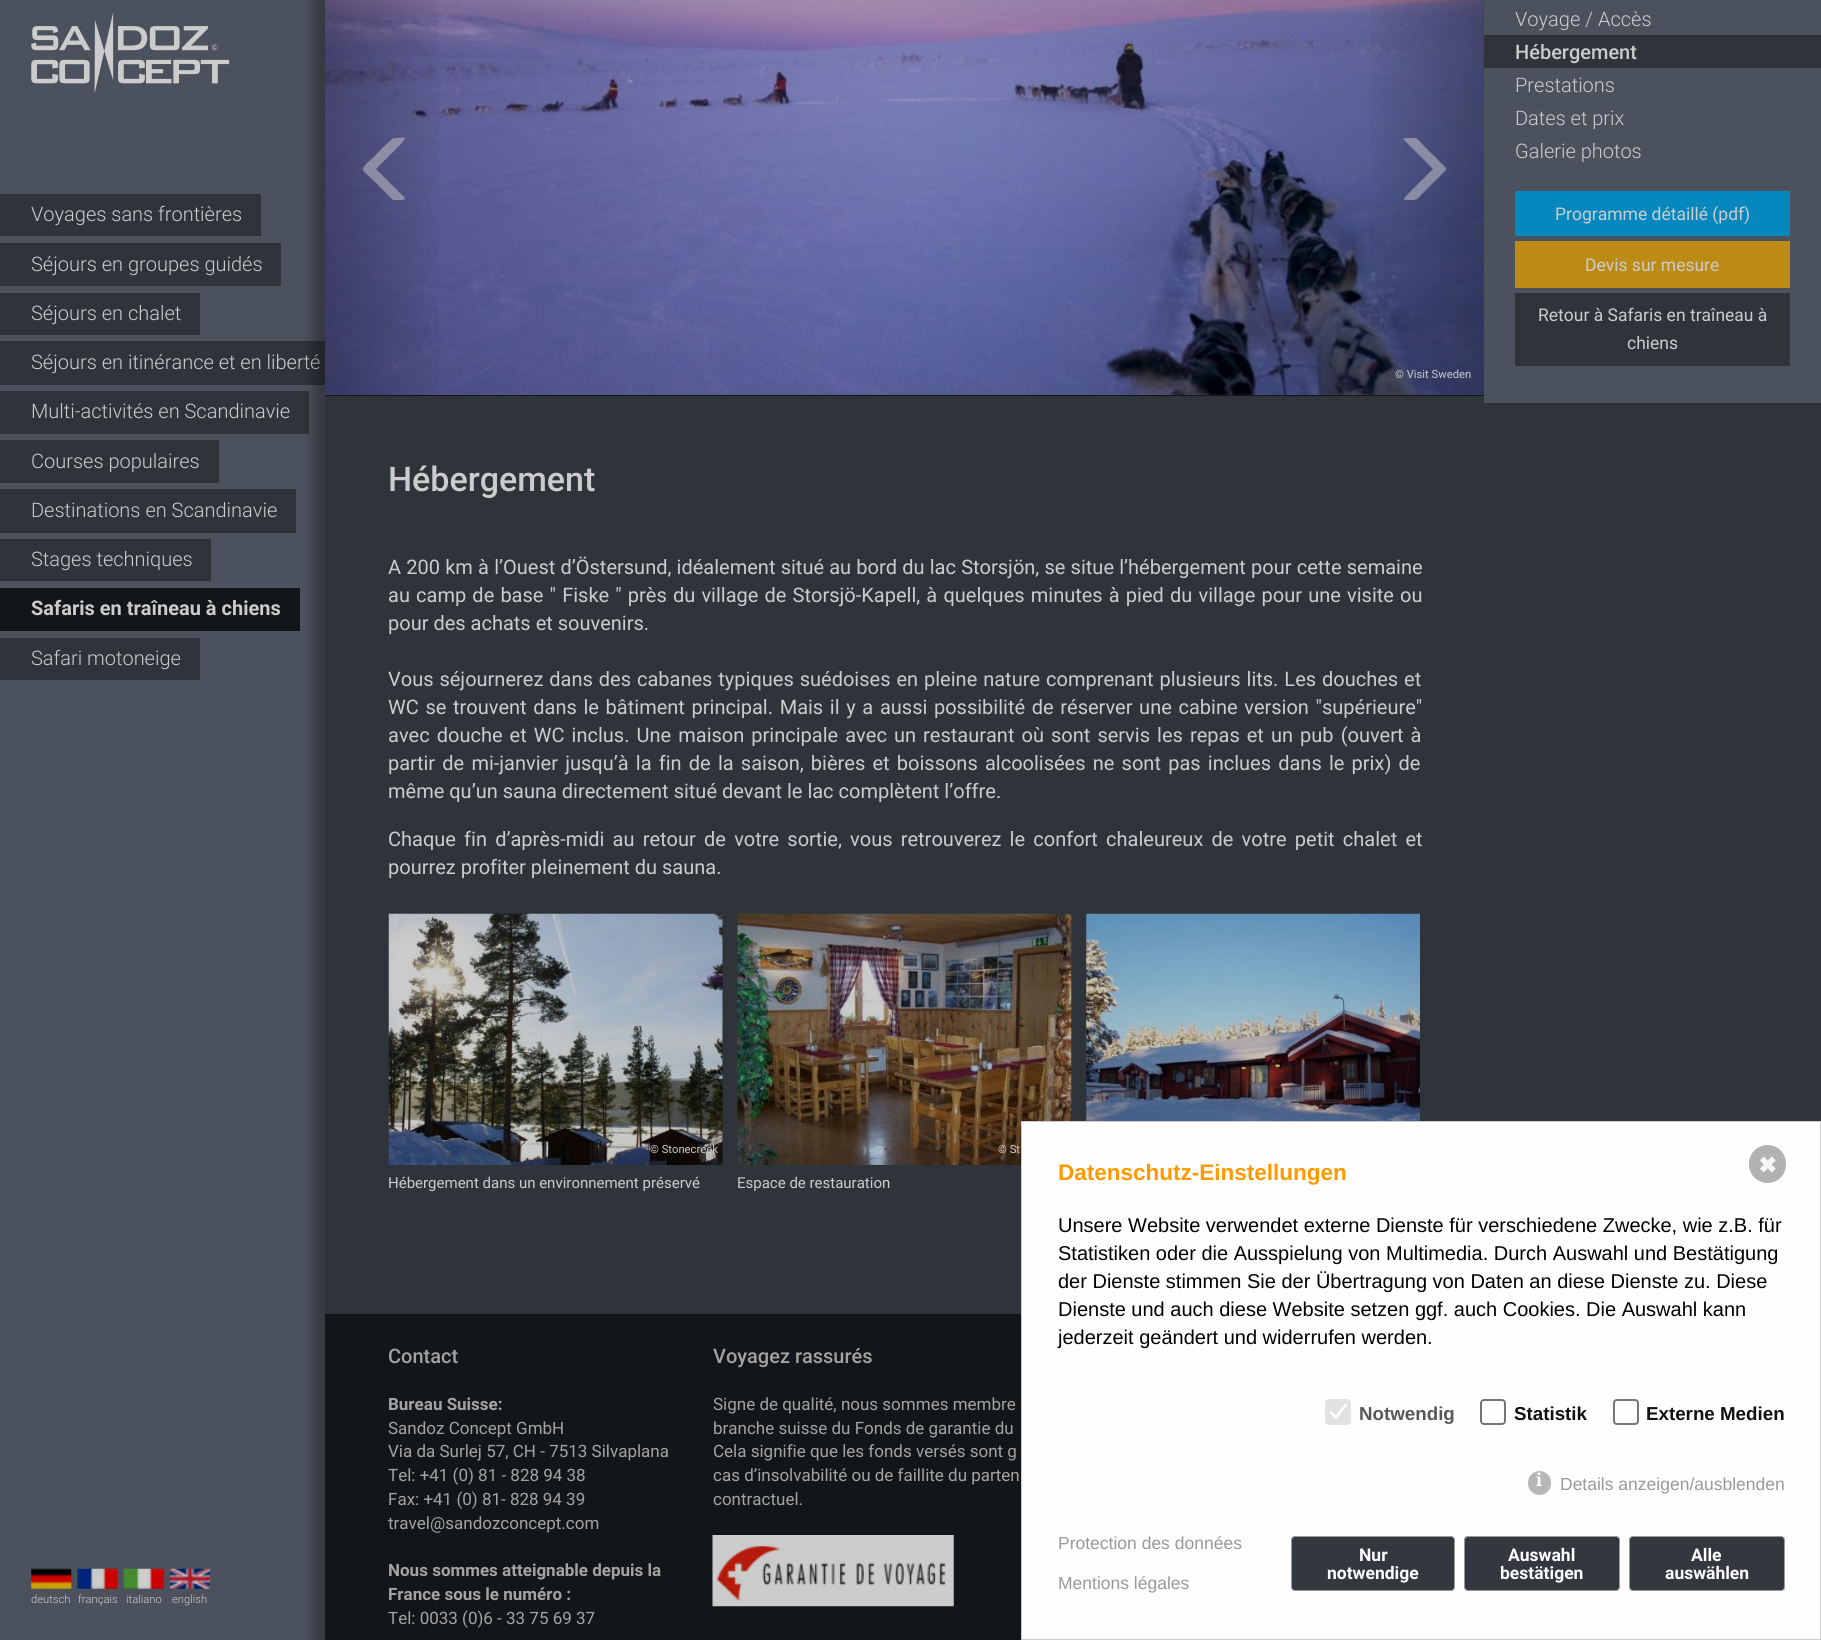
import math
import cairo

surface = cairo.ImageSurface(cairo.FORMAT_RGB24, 1821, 1640)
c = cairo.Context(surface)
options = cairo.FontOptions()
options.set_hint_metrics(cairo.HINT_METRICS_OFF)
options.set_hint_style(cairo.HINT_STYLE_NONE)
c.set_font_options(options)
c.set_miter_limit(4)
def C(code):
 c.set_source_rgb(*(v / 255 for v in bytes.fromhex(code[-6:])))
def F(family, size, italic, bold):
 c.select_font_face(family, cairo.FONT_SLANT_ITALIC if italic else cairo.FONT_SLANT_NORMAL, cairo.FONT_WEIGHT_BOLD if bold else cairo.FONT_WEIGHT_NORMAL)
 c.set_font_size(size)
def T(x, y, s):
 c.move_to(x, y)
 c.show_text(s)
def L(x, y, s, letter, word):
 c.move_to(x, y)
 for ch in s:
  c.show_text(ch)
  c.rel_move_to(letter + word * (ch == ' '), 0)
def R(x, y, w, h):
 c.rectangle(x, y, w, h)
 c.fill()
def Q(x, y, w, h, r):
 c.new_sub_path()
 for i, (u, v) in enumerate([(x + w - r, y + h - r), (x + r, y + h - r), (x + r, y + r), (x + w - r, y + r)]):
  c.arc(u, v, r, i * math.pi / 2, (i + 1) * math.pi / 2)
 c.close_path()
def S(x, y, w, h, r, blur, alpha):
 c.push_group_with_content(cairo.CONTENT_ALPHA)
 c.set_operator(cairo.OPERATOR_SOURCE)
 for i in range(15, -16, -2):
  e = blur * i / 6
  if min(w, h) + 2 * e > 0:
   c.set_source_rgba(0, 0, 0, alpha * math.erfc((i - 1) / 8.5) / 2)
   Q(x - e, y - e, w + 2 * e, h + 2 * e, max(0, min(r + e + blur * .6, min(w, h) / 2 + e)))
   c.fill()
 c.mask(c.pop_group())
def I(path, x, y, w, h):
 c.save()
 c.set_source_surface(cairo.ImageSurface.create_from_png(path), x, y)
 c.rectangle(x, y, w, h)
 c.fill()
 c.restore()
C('4c525d')
c.paint()
I('1.png',31,13,199,81)
C('2f343a')
R(0,194,261,42)
F('Roboto Light',20,0,0)
C('cccccc')
T(31,221,'Voyages sans frontières')
C('2f343a')
R(0,243,281,43)
C('cccccc')
T(31,271,'Séjours en groupes guidés')
C('2f343a')
R(0,293,200,42)
C('cccccc')
T(31,320,'Séjours en chalet')
C('2f343a')
R(0,341,325,44)
C('cccccc')
T(31,369,'Séjours en itinérance et en liberté')
C('2f343a')
R(0,391,309,43)
C('cccccc')
T(31,418,'Multi-activités en Scandinavie')
C('2f343a')
R(0,440,219,43)
C('cccccc')
T(31,468,'Courses populaires')
C('2f343a')
R(0,489,296,44)
C('cccccc')
T(31,517,'Destinations en Scandinavie')
C('2f343a')
R(0,539,211,42)
C('cccccc')
T(31,566,'Stages techniques')
C('131618')
R(0,588,300,43)
F('Roboto',20,0,1)
C('cccccc')
T(31,615,'Safaris en traîneau à chiens')
C('2f343a')
R(0,638,200,42)
F('Roboto Light',20,0,0)
C('cccccc')
T(31,665,'Safari motoneige')
C('000000')
S(313,-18,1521,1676,0,6,.3)
C('2f343a')
R(325,396,1496,918)
C('4c525d')
R(325,0,1159,395)
C('131618')
R(325,395,1159,1)
C('4c525d')
R(1484,0,337,403)
C('cccccc')
T(1515,26,'Voyage / Accès')
C('2f343a')
R(1484,35,337,33)
F('Roboto Medium',20,0,0)
C('cccccc')
T(1515,59,'Hébergement')
F('Roboto Light',20,0,0)
T(1515,92,'Prestations')
T(1515,125,'Dates et prix')
T(1515,158,'Galerie photos')
C('0688be')
R(1515,191,275,45)
F('Roboto',17.5,0,0)
C('cccccc')
T(1555,220,'Programme détaillé (pdf)')
C('bd8b14')
R(1515,241,275,47)
C('cccccc')
T(1585,271,'Devis sur mesure')
C('2f343a')
R(1515,293,275,73)
C('cccccc')
T(1538,321,'Retour à Safaris en traîneau à')
T(1627,349,'chiens')
I('2.png',325,0,1159,395)
gradient = cairo.LinearGradient(325,148,450,148)
gradient.add_color_stop_rgba(0,0,0,0,.25)
gradient.add_color_stop_rgba(1,0,0,0,0)
c.set_source(gradient)
R(325,0,114,395)
c.set_source_rgba(0.8,0.8,0.8,0.5)
c.new_path()
c.move_to(394,138)
c.curve_to(405,138,409,135,400,145)
c.line_to(376,169)
c.line_to(400,193)
c.curve_to(405,198,408,200,400,200)
c.line_to(393,200)
c.line_to(373,180)
c.curve_to(371,178,362,171,363,169)
c.curve_to(363,166,371,159,373,158)
c.curve_to(375,155,392,138,394,138)
c.close_path()
c.fill()
gradient = cairo.LinearGradient(1359,148,1484,148)
gradient.add_color_stop_rgba(0,0,0,0,0)
gradient.add_color_stop_rgba(1,0,0,0,.25)
c.set_source(gradient)
R(1370,0,114,395)
c.set_source_rgba(0.8,0.8,0.8,0.5)
c.new_path()
c.move_to(1405,138)
c.curve_to(1420,138,1414,136,1426,148)
c.line_to(1441,163)
c.curve_to(1448,170,1448,168,1441,175)
c.line_to(1426,190)
c.curve_to(1415,201,1420,200,1405,200)
c.curve_to(1404,200,1404,199,1404,198)
c.line_to(1433,169)
c.line_to(1404,140)
c.curve_to(1403,139,1404,138,1405,138)
c.close_path()
c.fill()
F('Roboto',11.25,0,0)
C('cccccc')
T(1395,378,'© Visit Sweden')
F('Roboto Medium',34,0,0)
T(388,491,'Hébergement')
F('Roboto',20,0,0)
L(388,574,'A 200 km à l’Ouest d’Östersund, idéalement situé au bord du lac Storsjön, se situe l’hébergement pour cette semaine',0,.25)
L(388,602,'au camp de base " Fiske " près du village de Storsjö-Kapell, à quelques minutes à pied du village pour une visite ou',0,1.2)
T(388,630,'pour des achats et souvenirs.')
L(388,686,'Vous séjournerez dans des cabanes typiques suédoises en pleine nature comprenant plusieurs lits. Les douches et',0,1)
L(388,714,'WC se trouvent dans le bâtiment principal. Mais il y a aussi possibilité de réserver une cabine version "supérieure"',0,1.7)
L(388,742,'avec douche et WC inclus. Une maison principale avec un restaurant où sont servis les repas et un pub (ouvert à',0,2.1)
L(388,770,'partir de mi-janvier jusqu’à la fin de la saison, bières et boissons alcoolisées ne sont pas inclues dans le prix) de',0,2.25)
T(388,798,'même qu’un sauna directement situé devant le lac complètent l’offre.')
L(388,846,'Chaque fin d’après-midi au retour de votre sortie, vous retrouverez le confort chaleureux de votre petit chalet et',0,3.25)
T(388,874,'pourrez profiter pleinement du sauna.')
I('3.png',1086,913,334,208)
C('292c32')
R(722,914,1,251)
I('4.png',388,913,335,252)
F('Roboto',11.25,0,0)
C('cccccc')
T(650,1153,'© Stonecreek')
F('Roboto',15,0,0)
T(388,1188,'Hébergement dans un environnement préservé')
I('5.png',737,913,335,252)
F('Roboto',11.25,0,0)
T(998,1153,'© St')
F('Roboto',15,0,0)
T(737,1188,'Espace de restauration')
C('131618')
R(325,1314,696,326)
F('Roboto Medium',20,0,0)
C('a3a3a3')
T(388,1363,'Contact')
F('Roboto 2',17,0,1)
T(388,1410,'Bureau Suisse:')
F('Roboto',17,0,0)
T(388,1434,'Sandoz Concept GmbH')
T(388,1457,'Via da Surlej 57, CH - 7513 Silvaplana')
T(388,1481,'Tel: +41 (0) 81 - 828 94 38')
T(388,1505,'Fax: +41 (0) 81- 828 94 39')
T(388,1529,'travel@sandozconcept.com')
F('Roboto 2',17,0,1)
T(388,1576,'Nous sommes atteignable depuis la')
T(388,1600,'France sous le numéro :')
F('Roboto',17,0,0)
T(388,1624,'Tel: 0033 (0)6 - 33 75 69 37')
F('Roboto Medium',20,0,0)
T(713,1363,'Voyagez rassurés')
F('Roboto',17,0,0)
T(713,1410,'Signe de qualité, nous sommes membre')
T(713,1434,'branche suisse du Fonds de garantie du')
T(713,1457,'Cela signifie que les fonds versés sont g')
T(713,1481,'cas d’insolvabilité ou de faillite du parten')
T(713,1505,'contractuel.')
I('6.png',712,1535,242,72)
C('fefefe')
c.rectangle(1021.5,1121.5,799,518)
c.fill_preserve()
C('cbcbcb')
c.set_line_width(1)
c.stroke()
C('b2b2b2')
Q(1750.5,1146.5,34,35,17)
c.fill_preserve()
c.set_line_width(3)
c.stroke()
F('DejaVu Sans',22.5,0,1)
C('f6f6f6')
T(1758,1173,'✖')
F('Liberation Sans',22.5,0,1)
C('ff9900')
T(1058,1180,'Datenschutz-Einstellungen')
F('Liberation Sans',20,0,0)
C('000000')
T(1058,1232,'Unsere Website verwendet externe Dienste für verschiedene Zwecke, wie z.B. für')
T(1058,1260,'Statistiken oder die Ausspielung von Multimedia. Durch Auswahl und Bestätigung')
T(1058,1288,'der Dienste stimmen Sie der Übertragung von Daten an diese Dienste zu. Diese')
T(1058,1316,'Dienste und auch diese Website setzen ggf. auch Cookies. Die Auswahl kann')
T(1058,1344,'jederzeit geändert und widerrufen werden.')
C('e2e2e2')
Q(1325,1399,26,26,4)
c.fill()
c.new_path()
c.move_to(1330.5,1412)
c.line_to(1336,1417.5)
c.line_to(1346,1404.5)
C('ffffff')
c.set_line_width(2.6)
c.stroke()
F('Liberation Sans',18.75,0,1)
C('585858')
T(1359,1420,'Notwendig')
Q(1481,1400,24,24,3)
C('767676')
c.set_line_width(2)
c.stroke()
C('111111')
T(1514,1420,'Statistik')
Q(1614,1400,24,24,3)
C('767676')
c.stroke()
C('111111')
T(1646,1420,'Externe Medien')
C('b7b7b7')
Q(1528,1471,23,24,11.5)
c.fill()
F('Noto Serif',17.5,0,1)
C('ffffff')
T(1536,1486,'i')
F('Liberation Sans',17.5,0,0)
C('999999')
T(1560,1490,'Details anzeigen/ausblenden')
T(1058,1549,'Protection des données')
T(1058,1589,'Mentions légales')
C('33373e')
Q(1291.5,1536.5,163,54,3.5)
c.fill_preserve()
C('999999')
c.set_line_width(1)
c.stroke()
F('Roboto 2',17.5,0,1)
C('ffffff')
T(1359,1561,'Nur')
T(1327,1579,'notwendige')
C('33373e')
Q(1464.5,1536.5,155,54,3.5)
c.fill_preserve()
C('999999')
c.stroke()
C('ffffff')
T(1508,1561,'Auswahl')
T(1500,1579,'bestätigen')
C('33373e')
Q(1629.5,1536.5,155,54,3.5)
c.fill_preserve()
C('999999')
c.stroke()
C('ffffff')
T(1691,1561,'Alle')
T(1665,1579,'auswählen')
I('7.png',31,1568,41,21)
F('Roboto Light',11.25,0,0)
C('cccccc')
T(31,1603,'deutsch')
I('8.png',77,1568,42,21)
T(78,1603,'français')
I('9.png',123,1568,42,21)
T(126,1603,'italiano')
I('10.png',169,1568,42,21)
T(172,1603,'english')
surface.write_to_png('o.png')
